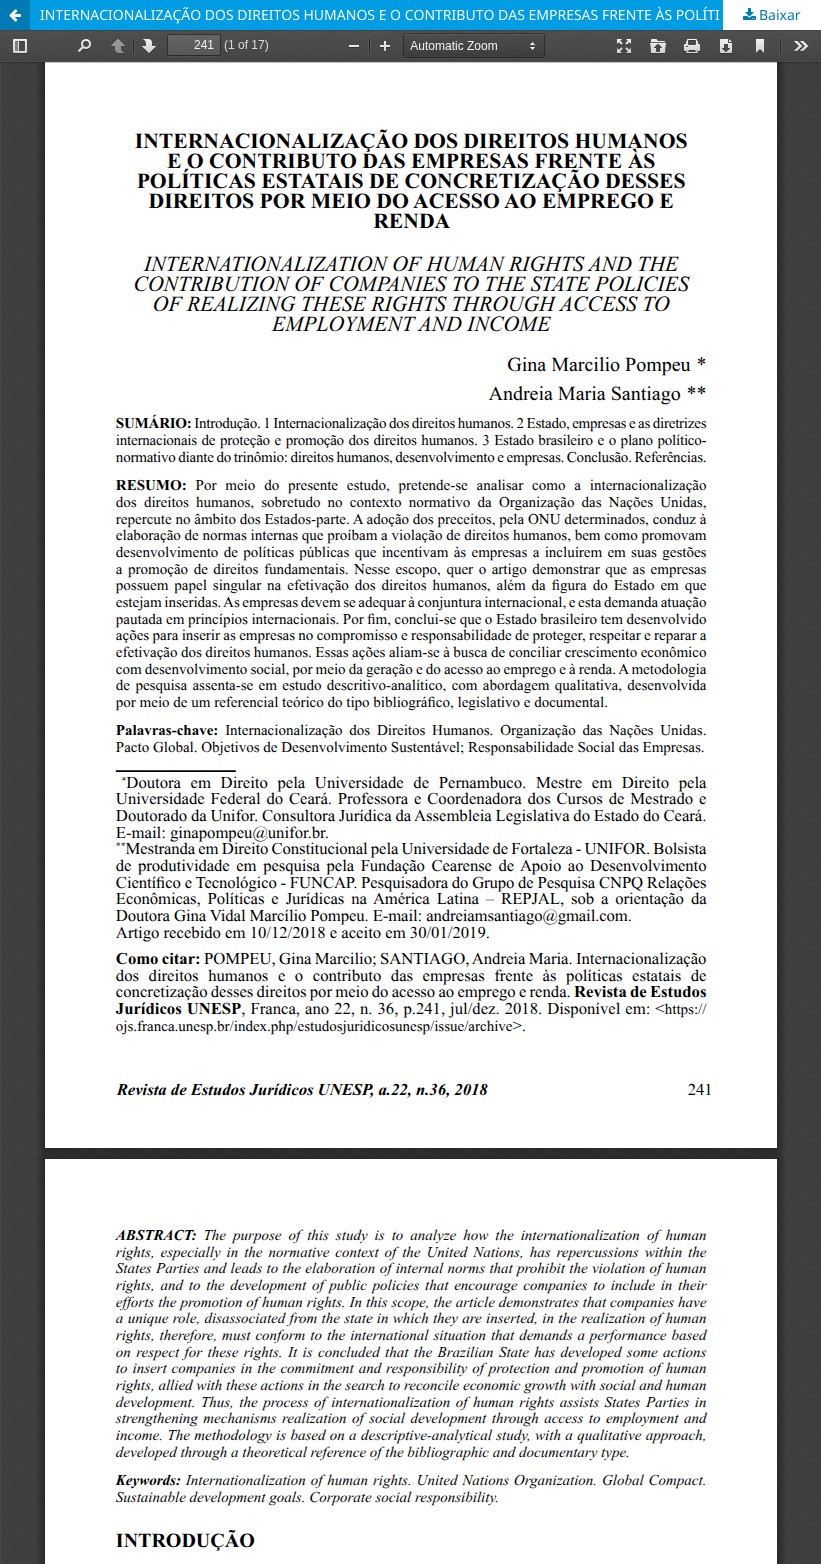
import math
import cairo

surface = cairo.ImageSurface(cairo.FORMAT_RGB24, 821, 1564)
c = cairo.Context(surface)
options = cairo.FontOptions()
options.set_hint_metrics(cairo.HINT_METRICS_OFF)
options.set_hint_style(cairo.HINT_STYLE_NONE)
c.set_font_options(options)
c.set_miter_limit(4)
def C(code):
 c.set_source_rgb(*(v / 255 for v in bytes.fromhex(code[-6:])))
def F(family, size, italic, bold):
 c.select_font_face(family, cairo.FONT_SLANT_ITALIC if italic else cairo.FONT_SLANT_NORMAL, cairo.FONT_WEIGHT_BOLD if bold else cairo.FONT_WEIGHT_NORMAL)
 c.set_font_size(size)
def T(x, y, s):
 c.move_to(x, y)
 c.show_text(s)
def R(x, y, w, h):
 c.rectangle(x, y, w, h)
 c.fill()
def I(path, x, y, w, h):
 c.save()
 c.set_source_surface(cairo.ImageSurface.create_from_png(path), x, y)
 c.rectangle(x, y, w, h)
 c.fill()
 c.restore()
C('ffffff')
c.paint()
C('009de5')
R(30,0,693,30)
C('007ab2')
R(0,0,30,30)
I('1.png',9,9,12,13)
F('Noto Sans',14,0,0)
C('ffffff')
T(40,20,'INTERNACIONALIZAÇÃO DOS DIREITOS HUMANOS E O CONTRIBUTO DAS EMPRESAS FRENTE ÀS POLÍTI')
I('2.png',743,8,13,12)
C('007ab2')
T(759,20,'Baixar')
I('3.png',0,30,821,1534)
surface.write_to_png('o.png')
